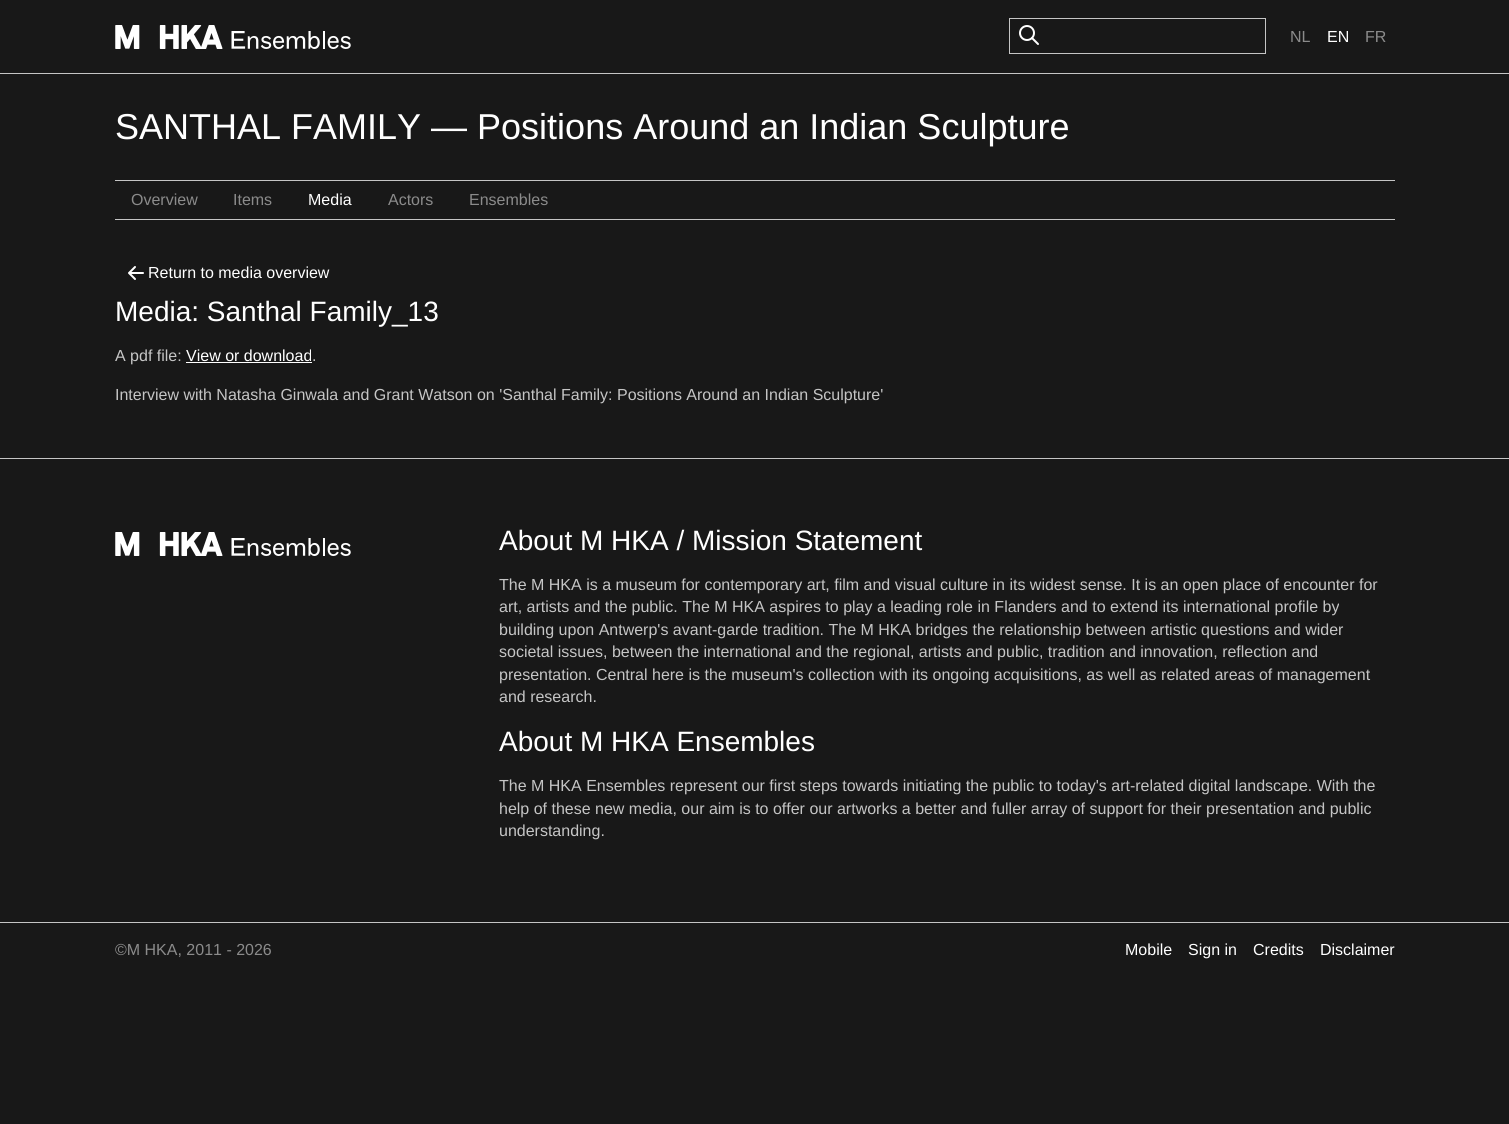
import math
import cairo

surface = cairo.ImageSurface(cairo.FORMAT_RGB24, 1509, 1124)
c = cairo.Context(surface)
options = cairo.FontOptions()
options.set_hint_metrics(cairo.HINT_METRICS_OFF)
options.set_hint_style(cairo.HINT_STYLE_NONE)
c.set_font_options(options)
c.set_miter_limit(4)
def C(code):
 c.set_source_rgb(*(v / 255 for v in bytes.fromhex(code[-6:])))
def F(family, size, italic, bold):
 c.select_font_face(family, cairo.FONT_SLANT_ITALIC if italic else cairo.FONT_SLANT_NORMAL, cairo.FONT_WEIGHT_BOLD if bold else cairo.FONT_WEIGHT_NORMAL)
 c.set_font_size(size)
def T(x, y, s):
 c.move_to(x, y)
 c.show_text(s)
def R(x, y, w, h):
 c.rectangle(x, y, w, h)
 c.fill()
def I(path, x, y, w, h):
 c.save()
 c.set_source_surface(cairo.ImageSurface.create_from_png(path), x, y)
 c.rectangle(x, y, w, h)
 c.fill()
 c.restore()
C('181818')
c.paint()
C('c5c5c5')
R(0,73,1509,1)
I('1.png',115,25,236,24)
c.rectangle(1009.5,18.5,256,35)
c.set_line_width(1)
c.stroke()
I('2.png',1019,25,20,20)
F('Liberation Sans',16,0,0)
C('8b8b8b')
T(1290,42,'NL')
C('ffffff')
T(1327,42,'EN')
C('8b8b8b')
T(1365,42,'FR')
F('Liberation Sans',36,0,0)
C('ffffff')
T(115,139,'SANTHAL FAMILY — Positions Around an Indian Sculpture')
C('c5c5c5')
R(115,180,1280,1)
R(115,219,1280,1)
F('Liberation Sans',16,0,0)
C('8b8b8b')
T(131,205,'Overview')
T(233,205,'Items')
C('ffffff')
T(308,205,'Media')
C('8b8b8b')
T(388,205,'Actors')
T(469,205,'Ensembles')
c.new_path()
c.move_to(129,273)
c.line_to(143,273)
c.move_to(135,267)
c.line_to(129,273)
c.line_to(135,279)
C('ffffff')
c.set_line_width(2)
c.set_line_cap(cairo.LINE_CAP_ROUND)
c.set_line_join(cairo.LINE_JOIN_ROUND)
c.stroke()
T(148,278,'Return to media overview')
F('Liberation Sans',28,0,0)
T(115,321,'Media: Santhal Family_13')
F('Liberation Sans',16,0,0)
C('c5c5c5')
T(115,361,'A pdf file:')
C('ffffff')
T(186,361,'View or download')
R(186,362,126,1)
C('c5c5c5')
T(312,361,'.')
T(115,400,'Interview with Natasha Ginwala and Grant Watson on \'Santhal Family: Positions Around an Indian Sculpture\'')
R(0,458,1509,1)
I('1.png',115,532,236,24)
F('Liberation Sans',28,0,0)
C('ffffff')
T(499,550,'About M HKA / Mission Statement')
F('Liberation Sans',16,0,0)
C('c5c5c5')
T(499,590,'The M HKA is a museum for contemporary art, film and visual culture in its widest sense. It is an open place of encounter for')
T(499,612,'art, artists and the public. The M HKA aspires to play a leading role in Flanders and to extend its international profile by')
T(499,635,'building upon Antwerp\'s avant-garde tradition. The M HKA bridges the relationship between artistic questions and wider')
T(499,657,'societal issues, between the international and the regional, artists and public, tradition and innovation, reflection and')
T(499,680,'presentation. Central here is the museum\'s collection with its ongoing acquisitions, as well as related areas of management')
T(499,702,'and research.')
F('Liberation Sans',28,0,0)
C('ffffff')
T(499,751,'About M HKA Ensembles')
F('Liberation Sans',16,0,0)
C('c5c5c5')
T(499,791,'The M HKA Ensembles represent our first steps towards initiating the public to today\'s art-related digital landscape. With the')
T(499,814,'help of these new media, our aim is to offer our artworks a better and fuller array of support for their presentation and public')
T(499,836,'understanding.')
R(0,922,1509,1)
C('8b8b8b')
T(115,955,'©M HKA, 2011 - 2026')
C('ffffff')
T(1125,955,'Mobile')
T(1188,955,'Sign in')
T(1253,955,'Credits')
T(1320,955,'Disclaimer')
surface.write_to_png('o.png')
